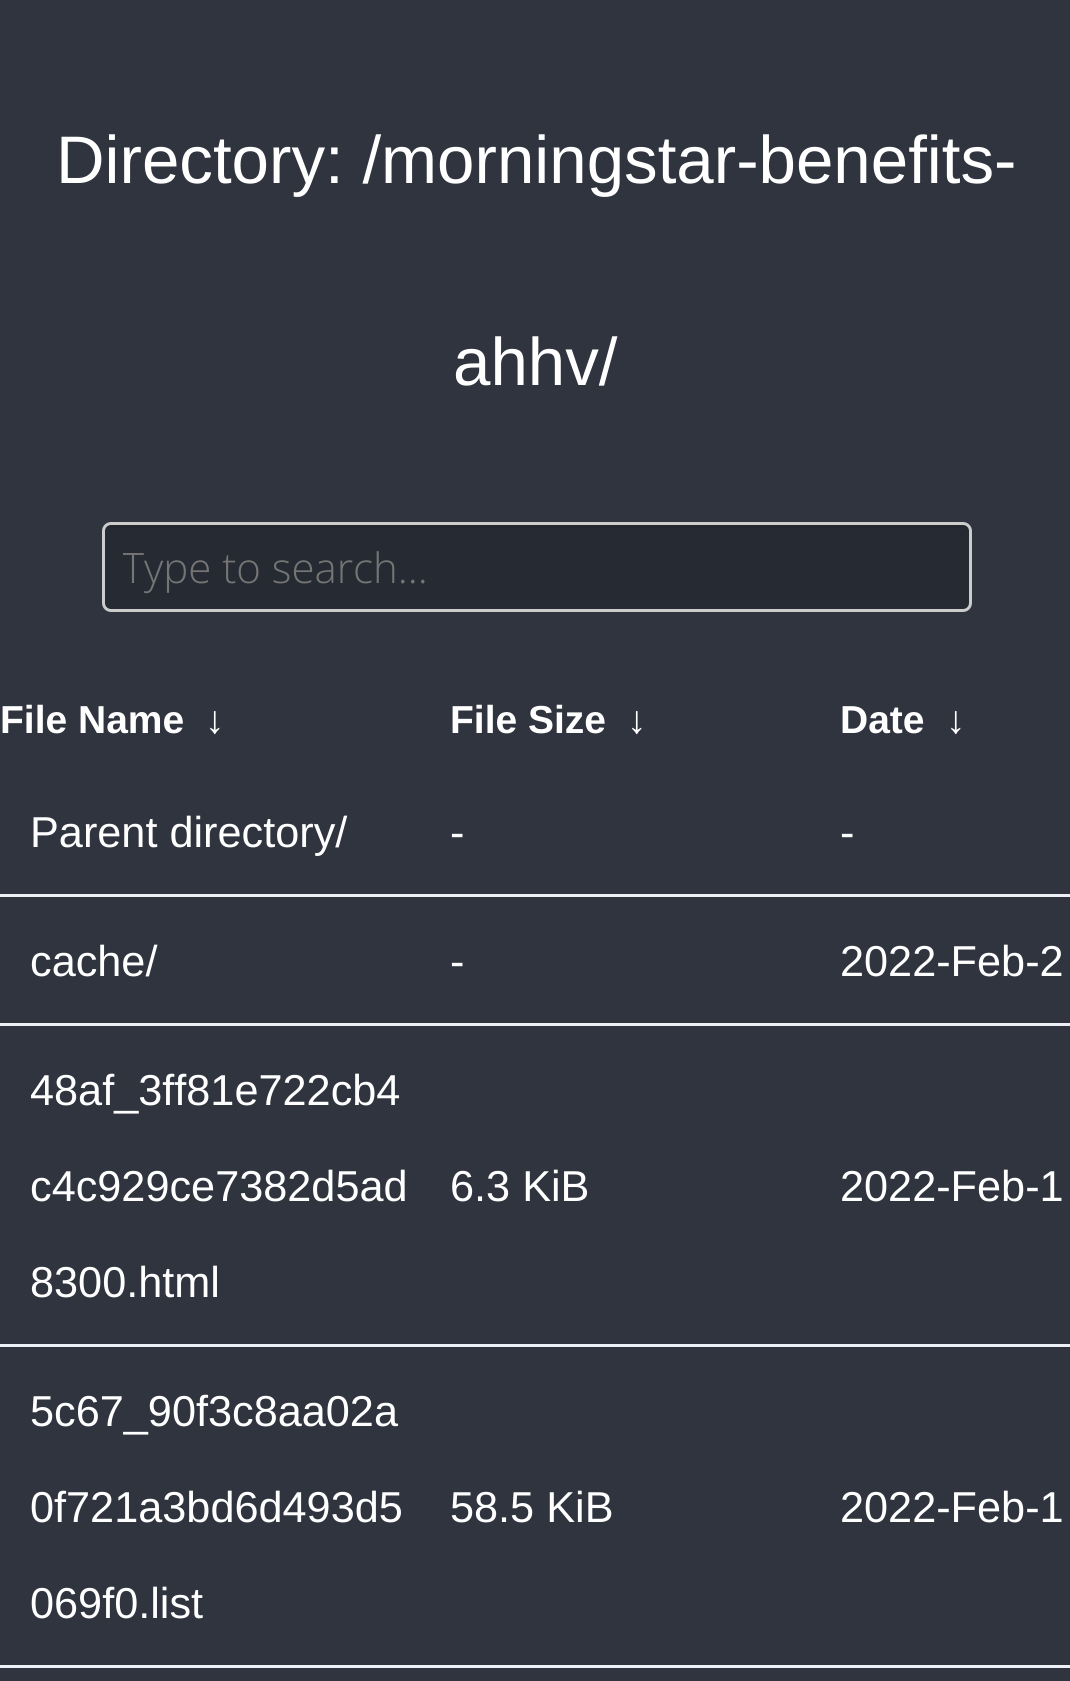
import math
import cairo

surface = cairo.ImageSurface(cairo.FORMAT_RGB24, 1070, 1681)
c = cairo.Context(surface)
options = cairo.FontOptions()
options.set_hint_metrics(cairo.HINT_METRICS_OFF)
options.set_hint_style(cairo.HINT_STYLE_NONE)
c.set_font_options(options)
c.set_miter_limit(4)
def C(code):
 c.set_source_rgb(*(v / 255 for v in bytes.fromhex(code[-6:])))
def F(family, size, italic, bold):
 c.select_font_face(family, cairo.FONT_SLANT_ITALIC if italic else cairo.FONT_SLANT_NORMAL, cairo.FONT_WEIGHT_BOLD if bold else cairo.FONT_WEIGHT_NORMAL)
 c.set_font_size(size)
def T(x, y, s):
 c.move_to(x, y)
 c.show_text(s)
def R(x, y, w, h):
 c.rectangle(x, y, w, h)
 c.fill()
def Q(x, y, w, h, r):
 c.new_sub_path()
 for i, (u, v) in enumerate([(x + w - r, y + h - r), (x + r, y + h - r), (x + r, y + r), (x + w - r, y + r)]):
  c.arc(u, v, r, i * math.pi / 2, (i + 1) * math.pi / 2)
 c.close_path()
C('2f343f')
c.paint()
F('Liberation Sans',67.25,0,0)
C('ffffff')
T(56,183,'Directory: /morningstar-benefits-')
T(453,385,'ahhv/')
C('262a32')
Q(102,522,870,90,9)
c.fill()
C('23272e')
c.new_path()
c.move_to(111,528)
c.line_to(963,528)
c.curve_to(966,528,969,531,969,534)
c.line_to(969,531)
c.curve_to(969,528,966,525,963,525)
c.line_to(111,525)
c.curve_to(108,525,105,528,105,531)
c.line_to(105,534)
c.curve_to(105,531,108,528,111,528)
c.close_path()
c.fill()
Q(103.5,523.5,867,87,7.5)
C('cccccc')
c.set_line_width(3)
c.stroke()
c.save()
c.rectangle(123,537,750,57)
c.clip()
F('Open Sans Light',42,0,0)
C('757575')
T(122,583,'Type to search...')
c.restore()
F('Liberation Sans',39,0,1)
C('ffffff')
T(0,733,'File Name')
T(205,733,'↓')
T(450,733,'File Size')
T(627,733,'↓')
T(840,733,'Date')
T(946,733,'↓')
F('Liberation Sans',43.25,0,0)
T(30,847,'Parent directory/')
T(450,847,'-')
C('edf1f5')
R(0,894,1070,3)
C('ffffff')
T(840,847,'-')
T(30,976,'cache/')
T(450,976,'-')
C('edf1f5')
R(0,1023,1070,3)
C('ffffff')
T(840,976,'2022-Feb-2')
T(30,1105,'48af_3ff81e722cb4')
T(30,1201,'c4c929ce7382d5ad')
T(30,1297,'8300.html')
T(450,1201,'6.3 KiB')
C('edf1f5')
R(0,1344,1070,3)
C('ffffff')
T(840,1201,'2022-Feb-1')
T(30,1426,'5c67_90f3c8aa02a')
T(30,1522,'0f721a3bd6d493d5')
T(30,1618,'069f0.list')
T(450,1522,'58.5 KiB')
C('edf1f5')
R(0,1665,1070,3)
C('ffffff')
T(840,1522,'2022-Feb-1')
surface.write_to_png('o.png')
